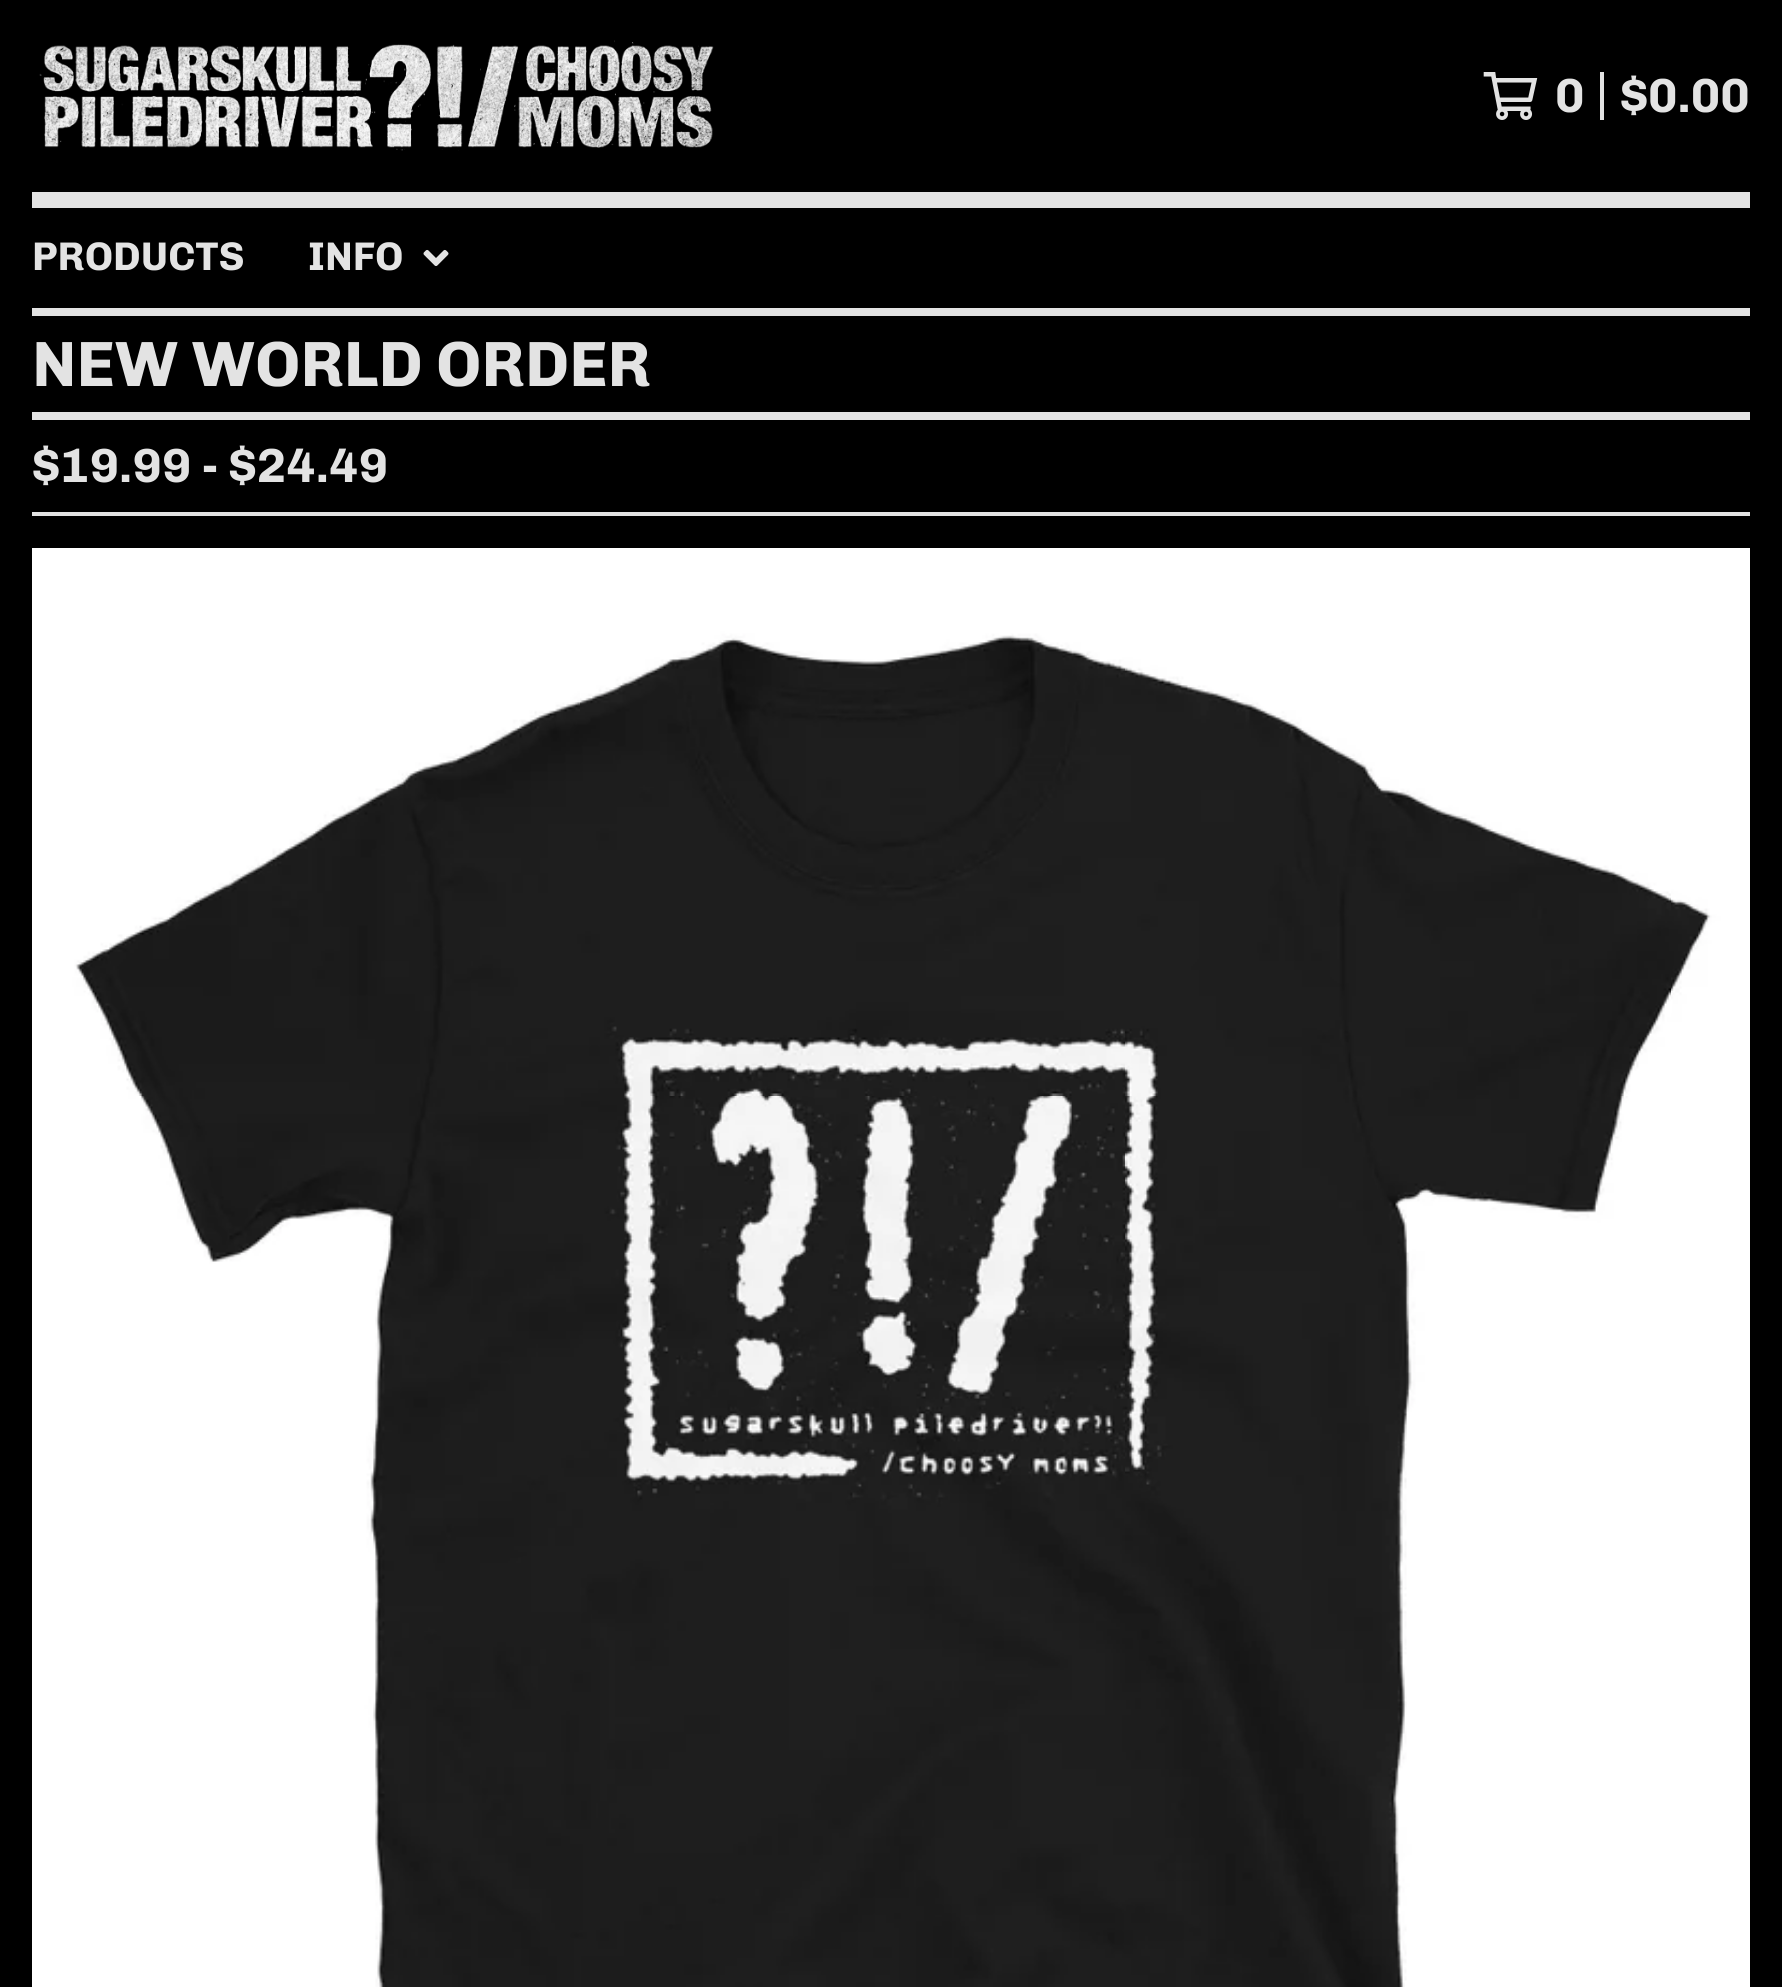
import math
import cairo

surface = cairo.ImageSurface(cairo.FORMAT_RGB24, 1782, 1987)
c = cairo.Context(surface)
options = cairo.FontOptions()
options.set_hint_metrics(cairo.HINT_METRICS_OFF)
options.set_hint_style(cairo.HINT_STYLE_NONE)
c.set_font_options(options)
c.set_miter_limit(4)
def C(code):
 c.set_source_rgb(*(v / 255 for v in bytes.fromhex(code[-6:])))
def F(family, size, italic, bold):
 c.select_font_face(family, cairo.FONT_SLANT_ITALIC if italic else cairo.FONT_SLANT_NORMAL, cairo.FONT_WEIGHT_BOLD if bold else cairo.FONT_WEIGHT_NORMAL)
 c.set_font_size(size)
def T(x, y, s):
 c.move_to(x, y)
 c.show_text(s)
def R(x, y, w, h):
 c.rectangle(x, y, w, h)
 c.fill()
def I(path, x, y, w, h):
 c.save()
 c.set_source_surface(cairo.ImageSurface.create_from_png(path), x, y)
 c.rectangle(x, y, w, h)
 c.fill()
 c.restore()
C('000000')
c.paint()
C('e3e3e3')
R(32,192,1718,16)
I('1.png',39,40,675,111)
I('2.png',1483,72,55,48)
R(1600,72,4,48)
F('Chivo',48,0,1)
T(1555,112,'0')
T(1620,112,'$0.00')
R(32,308,1718,8)
F('Chivo',40,0,1)
T(32,270,'PRODUCTS')
T(308,270,'INFO')
I('3.png',423,249,26,17)
R(32,412,1718,8)
F('Chivo',64,0,1)
T(32,386,'NEW WORLD ORDER')
R(32,512,1718,4)
F('Chivo',48,0,1)
T(32,482,'$19.99 - $24.49')
I('4.png',32,548,1718,1439)
surface.write_to_png('o.png')
